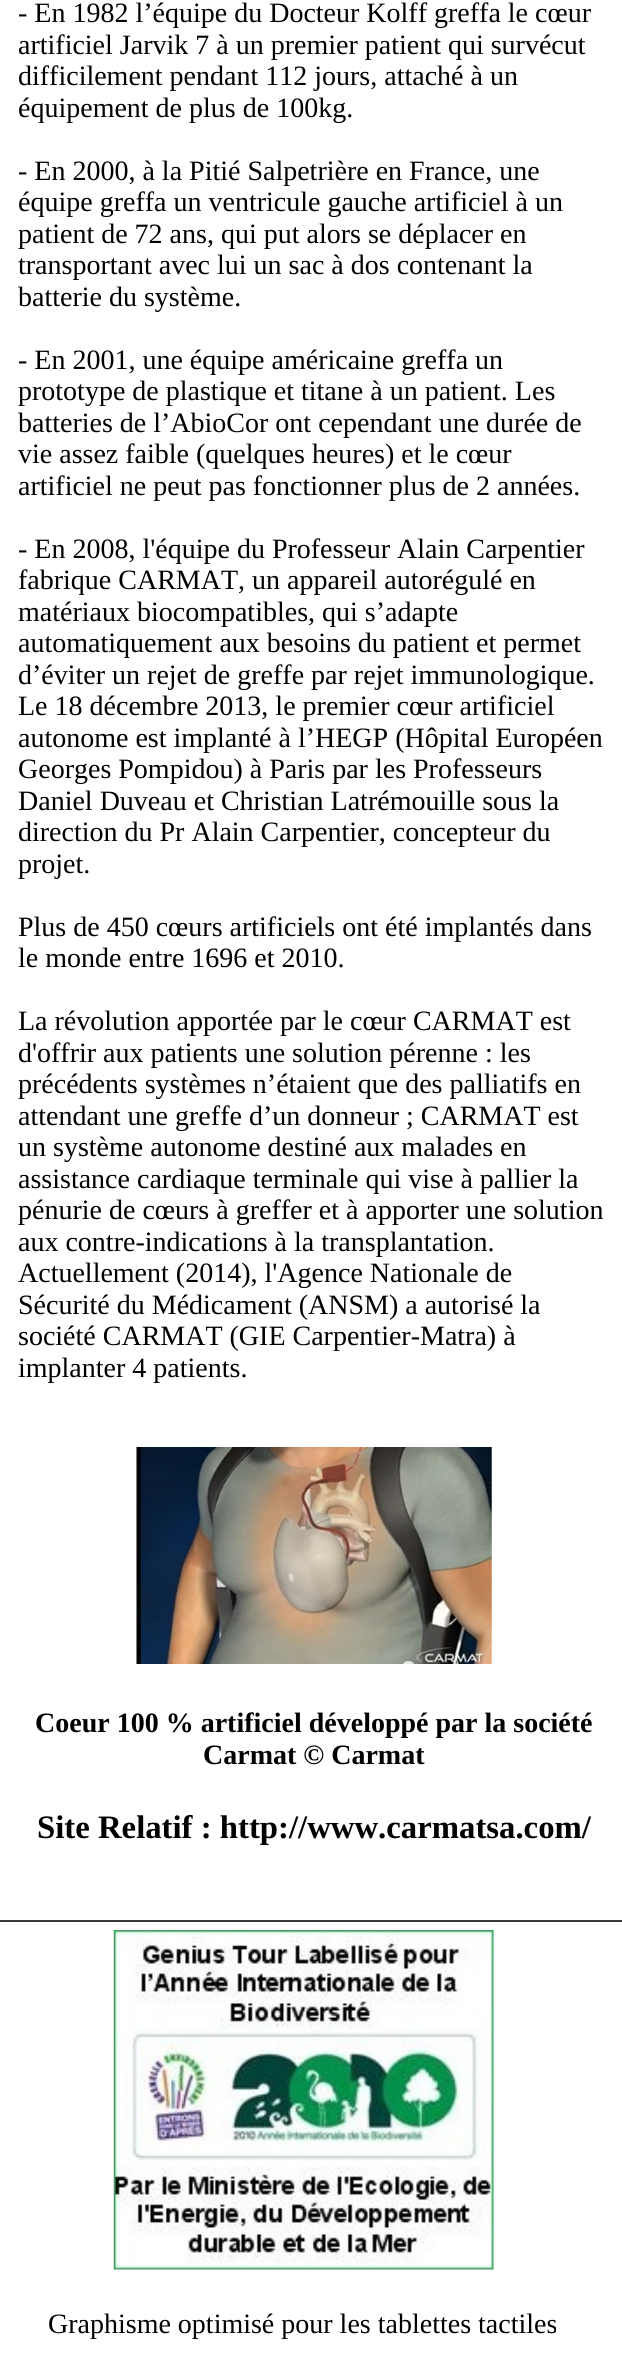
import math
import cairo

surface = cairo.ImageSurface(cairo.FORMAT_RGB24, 622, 2368)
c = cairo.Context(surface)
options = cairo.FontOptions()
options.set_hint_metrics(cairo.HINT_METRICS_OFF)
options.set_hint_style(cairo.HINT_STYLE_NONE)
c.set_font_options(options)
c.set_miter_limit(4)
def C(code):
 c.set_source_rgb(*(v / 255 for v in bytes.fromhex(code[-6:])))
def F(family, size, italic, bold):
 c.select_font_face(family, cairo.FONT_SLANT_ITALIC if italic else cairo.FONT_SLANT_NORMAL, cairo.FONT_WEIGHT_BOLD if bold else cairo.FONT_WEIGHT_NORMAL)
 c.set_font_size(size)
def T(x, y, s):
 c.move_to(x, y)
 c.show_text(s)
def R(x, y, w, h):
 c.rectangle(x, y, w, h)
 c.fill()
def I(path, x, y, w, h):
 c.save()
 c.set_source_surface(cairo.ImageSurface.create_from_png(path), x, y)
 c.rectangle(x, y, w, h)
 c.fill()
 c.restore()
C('ffffff')
c.paint()
C('36393d')
R(0,1920,622,2)
F('Liberation Serif',28,0,0)
C('000000')
T(18,22,'- En 1982 l’équipe du Docteur Kolff greffa le cœur')
T(18,54,'artificiel Jarvik 7 à un premier patient qui survécut')
T(18,85,'difficilement pendant 112 jours, attaché à un')
T(18,117,'équipement de plus de 100kg.')
T(18,180,'- En 2000, à la Pitié Salpetrière en France, une')
T(18,211,'équipe greffa un ventricule gauche artificiel à un')
T(18,243,'patient de 72 ans, qui put alors se déplacer en')
T(18,274,'transportant avec lui un sac à dos contenant la')
T(18,306,'batterie du système.')
T(18,369,'- En 2001, une équipe américaine greffa un')
T(18,400,'prototype de plastique et titane à un patient. Les')
T(18,432,'batteries de l’AbioCor ont cependant une durée de')
T(18,463,'vie assez faible (quelques heures) et le cœur')
T(18,495,'artificiel ne peut pas fonctionner plus de 2 années.')
T(18,558,'- En 2008, l\'équipe du Professeur Alain Carpentier')
T(18,589,'fabrique CARMAT, un appareil autorégulé en')
T(18,621,'matériaux biocompatibles, qui s’adapte')
T(18,652,'automatiquement aux besoins du patient et permet')
T(18,684,'d’éviter un rejet de greffe par rejet immunologique.')
T(18,715,'Le 18 décembre 2013, le premier cœur artificiel')
T(18,747,'autonome est implanté à l’HEGP (Hôpital Européen')
T(18,778,'Georges Pompidou) à Paris par les Professeurs')
T(18,810,'Daniel Duveau et Christian Latrémouille sous la')
T(18,841,'direction du Pr Alain Carpentier, concepteur du')
T(18,873,'projet.')
T(18,936,'Plus de 450 cœurs artificiels ont été implantés dans')
T(18,967,'le monde entre 1696 et 2010.')
T(18,1030,'La révolution apportée par le cœur CARMAT est')
T(18,1062,'d\'offrir aux patients une solution pérenne : les')
T(18,1093,'précédents systèmes n’étaient que des palliatifs en')
T(18,1125,'attendant une greffe d’un donneur ; CARMAT est')
T(18,1156,'un système autonome destiné aux malades en')
T(18,1188,'assistance cardiaque terminale qui vise à pallier la')
T(18,1219,'pénurie de cœurs à greffer et à apporter une solution')
T(18,1251,'aux contre-indications à la transplantation.')
T(18,1282,'Actuellement (2014), l\'Agence Nationale de')
T(18,1314,'Sécurité du Médicament (ANSM) a autorisé la')
T(18,1345,'société CARMAT (GIE Carpentier-Matra) à')
T(18,1377,'implanter 4 patients.')
I('1.png',136,1447,356,217)
F('Liberation Serif',28,0,1)
T(35,1732,'Coeur 100 % artificiel développé par la société')
T(203,1764,'Carmat © Carmat')
F('Liberation Serif',32.75,0,1)
T(37,1838,'Site Relatif : http://www.carmatsa.com/')
I('2.png',113,1930,381,340)
F('Liberation Serif',28,0,0)
T(48,2333,'Graphisme optimisé pour les tablettes tactiles')
surface.write_to_png('o.png')
